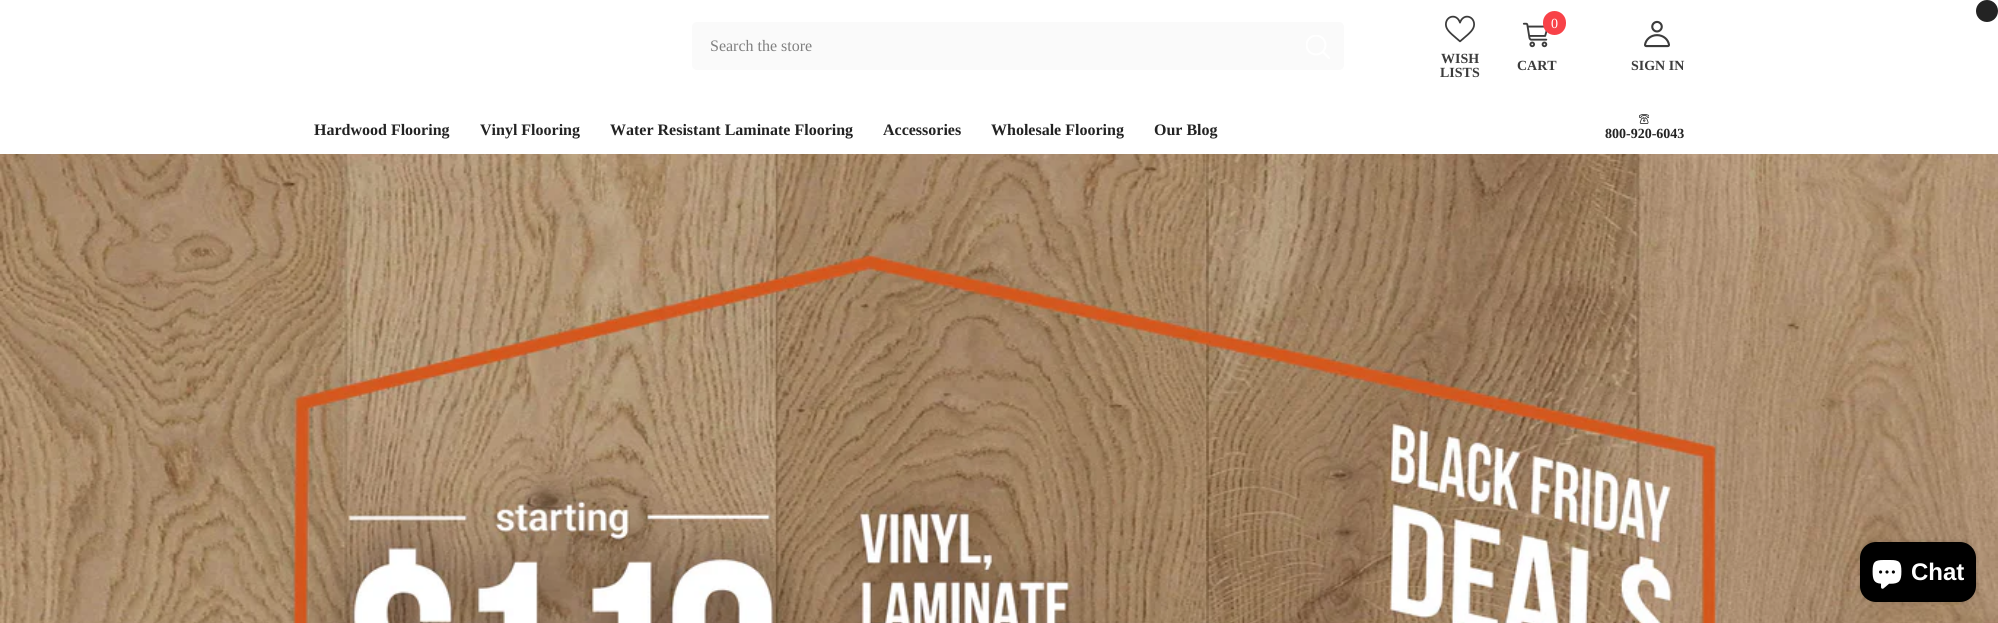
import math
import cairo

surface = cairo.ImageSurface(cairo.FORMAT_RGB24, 1998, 623)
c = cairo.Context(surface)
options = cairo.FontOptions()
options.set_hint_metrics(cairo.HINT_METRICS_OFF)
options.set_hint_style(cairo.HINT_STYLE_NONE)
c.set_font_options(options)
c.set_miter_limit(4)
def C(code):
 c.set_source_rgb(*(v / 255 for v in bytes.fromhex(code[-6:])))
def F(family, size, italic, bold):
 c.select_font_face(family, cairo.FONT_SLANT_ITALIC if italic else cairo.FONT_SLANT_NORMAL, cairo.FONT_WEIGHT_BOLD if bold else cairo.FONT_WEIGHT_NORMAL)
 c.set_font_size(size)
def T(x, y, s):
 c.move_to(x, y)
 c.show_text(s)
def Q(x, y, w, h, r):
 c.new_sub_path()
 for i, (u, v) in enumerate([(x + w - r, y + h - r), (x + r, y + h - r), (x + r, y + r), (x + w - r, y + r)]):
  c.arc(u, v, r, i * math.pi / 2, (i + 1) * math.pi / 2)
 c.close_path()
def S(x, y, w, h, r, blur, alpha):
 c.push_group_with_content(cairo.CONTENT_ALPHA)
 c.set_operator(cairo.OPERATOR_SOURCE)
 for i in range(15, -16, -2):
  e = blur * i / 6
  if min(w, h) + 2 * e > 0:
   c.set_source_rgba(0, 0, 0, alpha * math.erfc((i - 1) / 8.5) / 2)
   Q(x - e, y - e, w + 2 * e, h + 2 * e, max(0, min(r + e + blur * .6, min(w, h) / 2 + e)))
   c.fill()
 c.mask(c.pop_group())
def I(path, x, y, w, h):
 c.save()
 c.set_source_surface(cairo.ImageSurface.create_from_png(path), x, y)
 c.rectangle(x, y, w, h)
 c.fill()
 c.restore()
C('ffffff')
c.paint()
C('232323')
c.arc(1987,11,11,0,2 * math.pi)
c.fill()
C('fafafa')
Q(692,22,652,48,5)
c.fill()
F('Liberation Serif',16,0,0)
C('808080')
T(710,51,'Search the store')
I('1.png',1306,35,24,24)
I('2.png',1522,22,26,26)
C('f84248')
Q(1543,11,23,24,11.5)
c.fill()
F('Liberation Serif',14,0,0)
C('ffffff')
T(1551,28,'0')
F('Liberation Serif',14,0,1)
C('3c3c3c')
T(1517,70,'CART')
I('3.png',1445,15,30,28)
T(1441,63,'WISH')
T(1440,77,'LISTS')
I('4.png',1644,20,26,28)
T(1631,70,'SIGN IN')
F('Liberation Serif',16,0,1)
C('232323')
T(314,135,'Hardwood Flooring')
T(480,135,'Vinyl Flooring')
T(610,135,'Water Resistant Laminate Flooring')
T(883,135,'Accessories')
T(991,135,'Wholesale Flooring')
T(1154,135,'Our Blog')
I('5.png',1639,114,10,10)
F('Liberation Serif',14,0,1)
T(1605,138,'800-920-6043')
I('6.png',0,154,1998,469)
C('000000')
S(1860,542,116,60,16,2.5,.15)
C('000000')
Q(1860,542,116,60,16)
c.fill()
I('7.png',1872,560,30,29)
F('Liberation Sans',24,0,1)
C('ffffff')
T(1911,580,'Chat')
surface.write_to_png('o.png')
